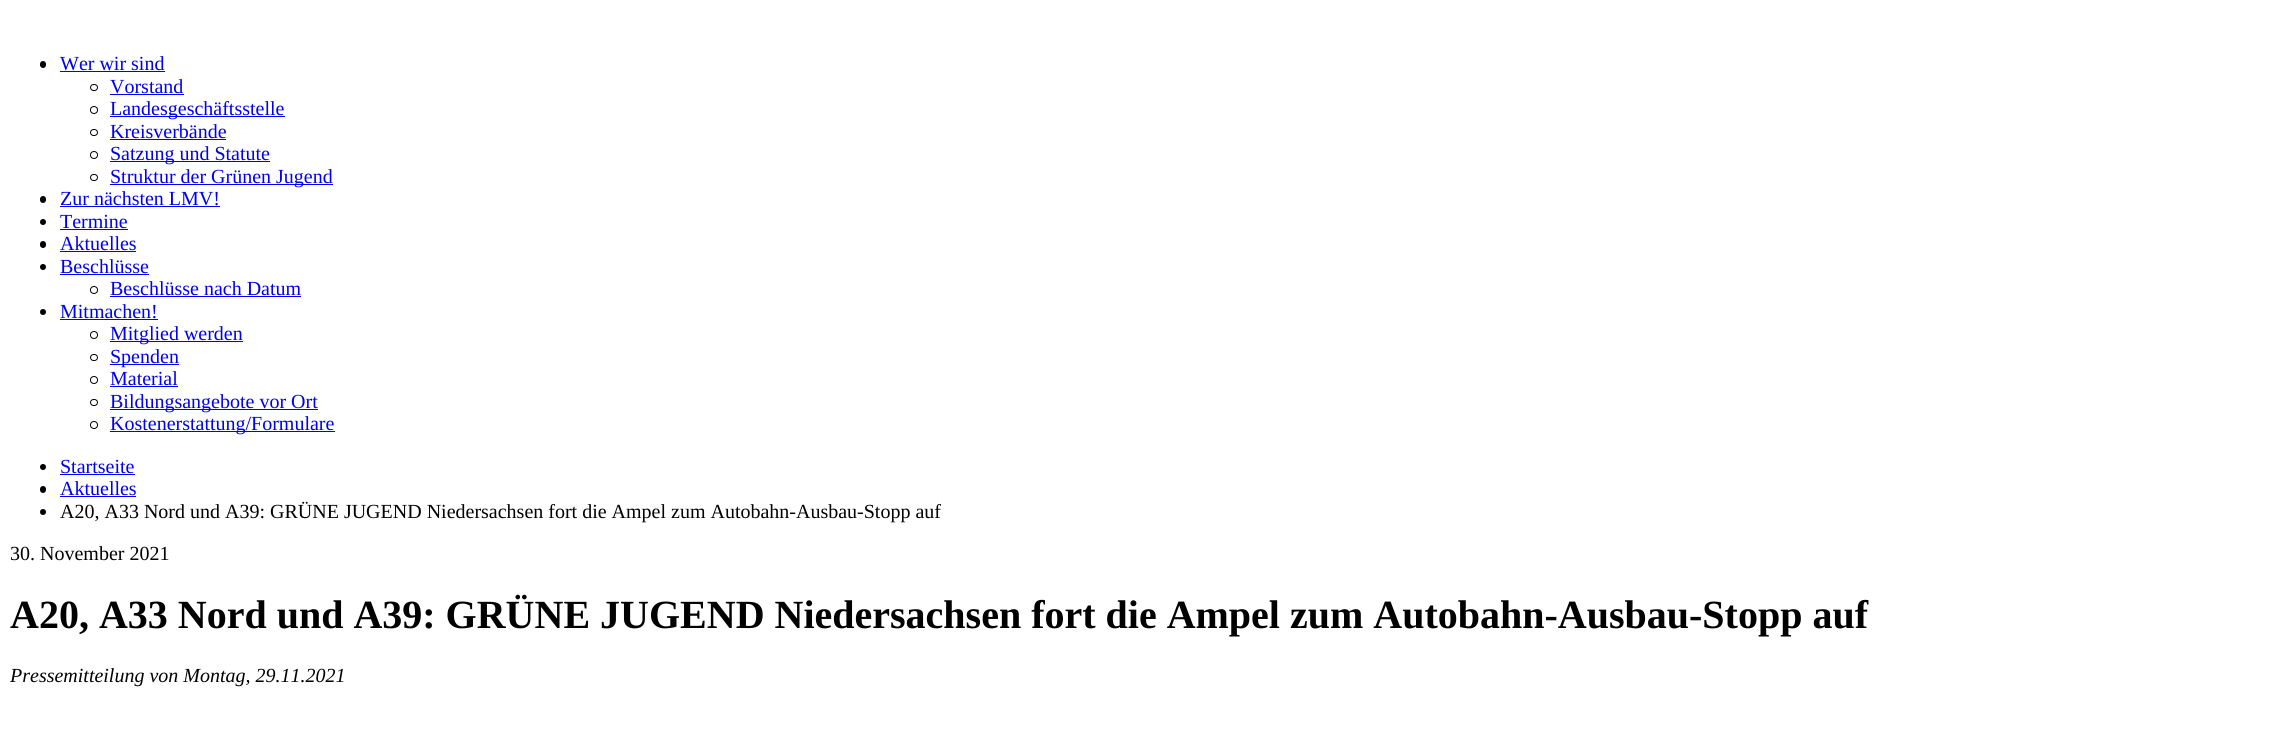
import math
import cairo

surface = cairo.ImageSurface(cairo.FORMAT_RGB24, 2271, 738)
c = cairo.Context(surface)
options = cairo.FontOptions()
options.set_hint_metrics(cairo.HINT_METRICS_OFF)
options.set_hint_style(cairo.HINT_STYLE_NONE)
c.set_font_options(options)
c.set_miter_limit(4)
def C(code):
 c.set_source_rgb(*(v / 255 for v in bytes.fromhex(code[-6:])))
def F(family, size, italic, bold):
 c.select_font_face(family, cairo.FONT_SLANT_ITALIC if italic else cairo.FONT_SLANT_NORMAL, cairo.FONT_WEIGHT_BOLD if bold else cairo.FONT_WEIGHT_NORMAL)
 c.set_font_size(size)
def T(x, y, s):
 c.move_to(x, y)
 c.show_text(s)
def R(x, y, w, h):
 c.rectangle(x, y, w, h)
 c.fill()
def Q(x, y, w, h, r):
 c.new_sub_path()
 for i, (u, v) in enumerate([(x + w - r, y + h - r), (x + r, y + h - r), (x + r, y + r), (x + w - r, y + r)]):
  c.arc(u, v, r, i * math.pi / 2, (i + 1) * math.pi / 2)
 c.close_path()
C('ffffff')
c.paint()
C('000000')
Q(40,61,6,7,3)
c.fill()
F('Liberation Serif',20,0,0)
C('0000ee')
T(60,70,'Wer wir sind')
R(60,71,105,1)
Q(90.5,84.5,7,6,3)
C('000000')
c.set_line_width(1)
c.stroke()
C('0000ee')
T(110,93,'Vorstand')
R(110,94,74,1)
c.new_path()
c.arc(94,110,3.5,0,2 * math.pi)
C('000000')
c.stroke()
C('0000ee')
R(110,116,175,1)
T(110,115,'Landesgeschäftsstelle')
Q(90.5,129.5,7,6,3)
C('000000')
c.stroke()
C('0000ee')
T(110,138,'Kreisverbände')
R(110,139,116,1)
c.new_path()
c.arc(94,155,3.5,0,2 * math.pi)
C('000000')
c.stroke()
C('0000ee')
R(110,161,160,1)
T(110,160,'Satzung und Statute')
Q(90.5,174.5,7,6,3)
C('000000')
c.stroke()
C('0000ee')
R(110,184,223,1)
T(110,183,'Struktur der Grünen Jugend')
C('000000')
Q(40,196,6,7,3)
c.fill()
C('0000ee')
T(60,205,'Zur nächsten LMV!')
R(60,206,160,1)
C('000000')
c.new_path()
c.arc(43,222,3,0,2 * math.pi)
c.fill()
C('0000ee')
T(60,228,'Termine')
R(60,229,68,1)
C('000000')
Q(40,241,6,7,3)
c.fill()
C('0000ee')
T(60,250,'Aktuelles')
R(60,251,76,1)
C('000000')
c.new_path()
c.arc(43,267,3,0,2 * math.pi)
c.fill()
C('0000ee')
T(60,273,'Beschlüsse')
R(60,274,89,1)
c.new_path()
c.arc(94,290,3.5,0,2 * math.pi)
C('000000')
c.stroke()
C('0000ee')
T(110,295,'Beschlüsse nach Datum')
R(110,296,191,1)
C('000000')
c.new_path()
c.arc(43,312,3,0,2 * math.pi)
c.fill()
C('0000ee')
T(60,318,'Mitmachen!')
R(60,319,98,1)
c.new_path()
c.arc(94,335,3.5,0,2 * math.pi)
C('000000')
c.stroke()
C('0000ee')
R(110,341,133,1)
T(110,340,'Mitglied werden')
Q(90.5,354.5,7,6,3)
C('000000')
c.stroke()
C('0000ee')
R(110,364,69,1)
T(110,363,'Spenden')
c.new_path()
c.arc(94,380,3.5,0,2 * math.pi)
C('000000')
c.stroke()
C('0000ee')
T(110,385,'Material')
R(110,386,68,1)
Q(90.5,399.5,7,6,3)
C('000000')
c.stroke()
C('0000ee')
R(110,409,208,1)
T(110,408,'Bildungsangebote vor Ort')
c.new_path()
c.arc(94,425,3.5,0,2 * math.pi)
C('000000')
c.stroke()
C('0000ee')
R(110,431,225,1)
T(110,430,'Kostenerstattung/Formulare')
C('000000')
c.new_path()
c.arc(43,467,3,0,2 * math.pi)
c.fill()
C('0000ee')
T(60,473,'Startseite')
R(60,474,75,1)
C('000000')
Q(40,486,6,7,3)
c.fill()
C('0000ee')
T(60,495,'Aktuelles')
R(60,496,76,1)
C('000000')
c.new_path()
c.arc(43,512,3,0,2 * math.pi)
c.fill()
T(60,518,'A20, A33 Nord und A39: GRÜNE JUGEND Niedersachsen fort die Ampel zum Autobahn-Ausbau-Stopp auf')
T(10,560,'30. November 2021')
F('Liberation Serif',40,0,1)
T(10,628,'A20, A33 Nord und A39: GRÜNE JUGEND Niedersachsen fort die Ampel zum Autobahn-Ausbau-Stopp auf')
F('Liberation Serif',20,1,0)
T(10,682,'Pressemitteilung von Montag, 29.11.2021')
surface.write_to_png('o.png')
